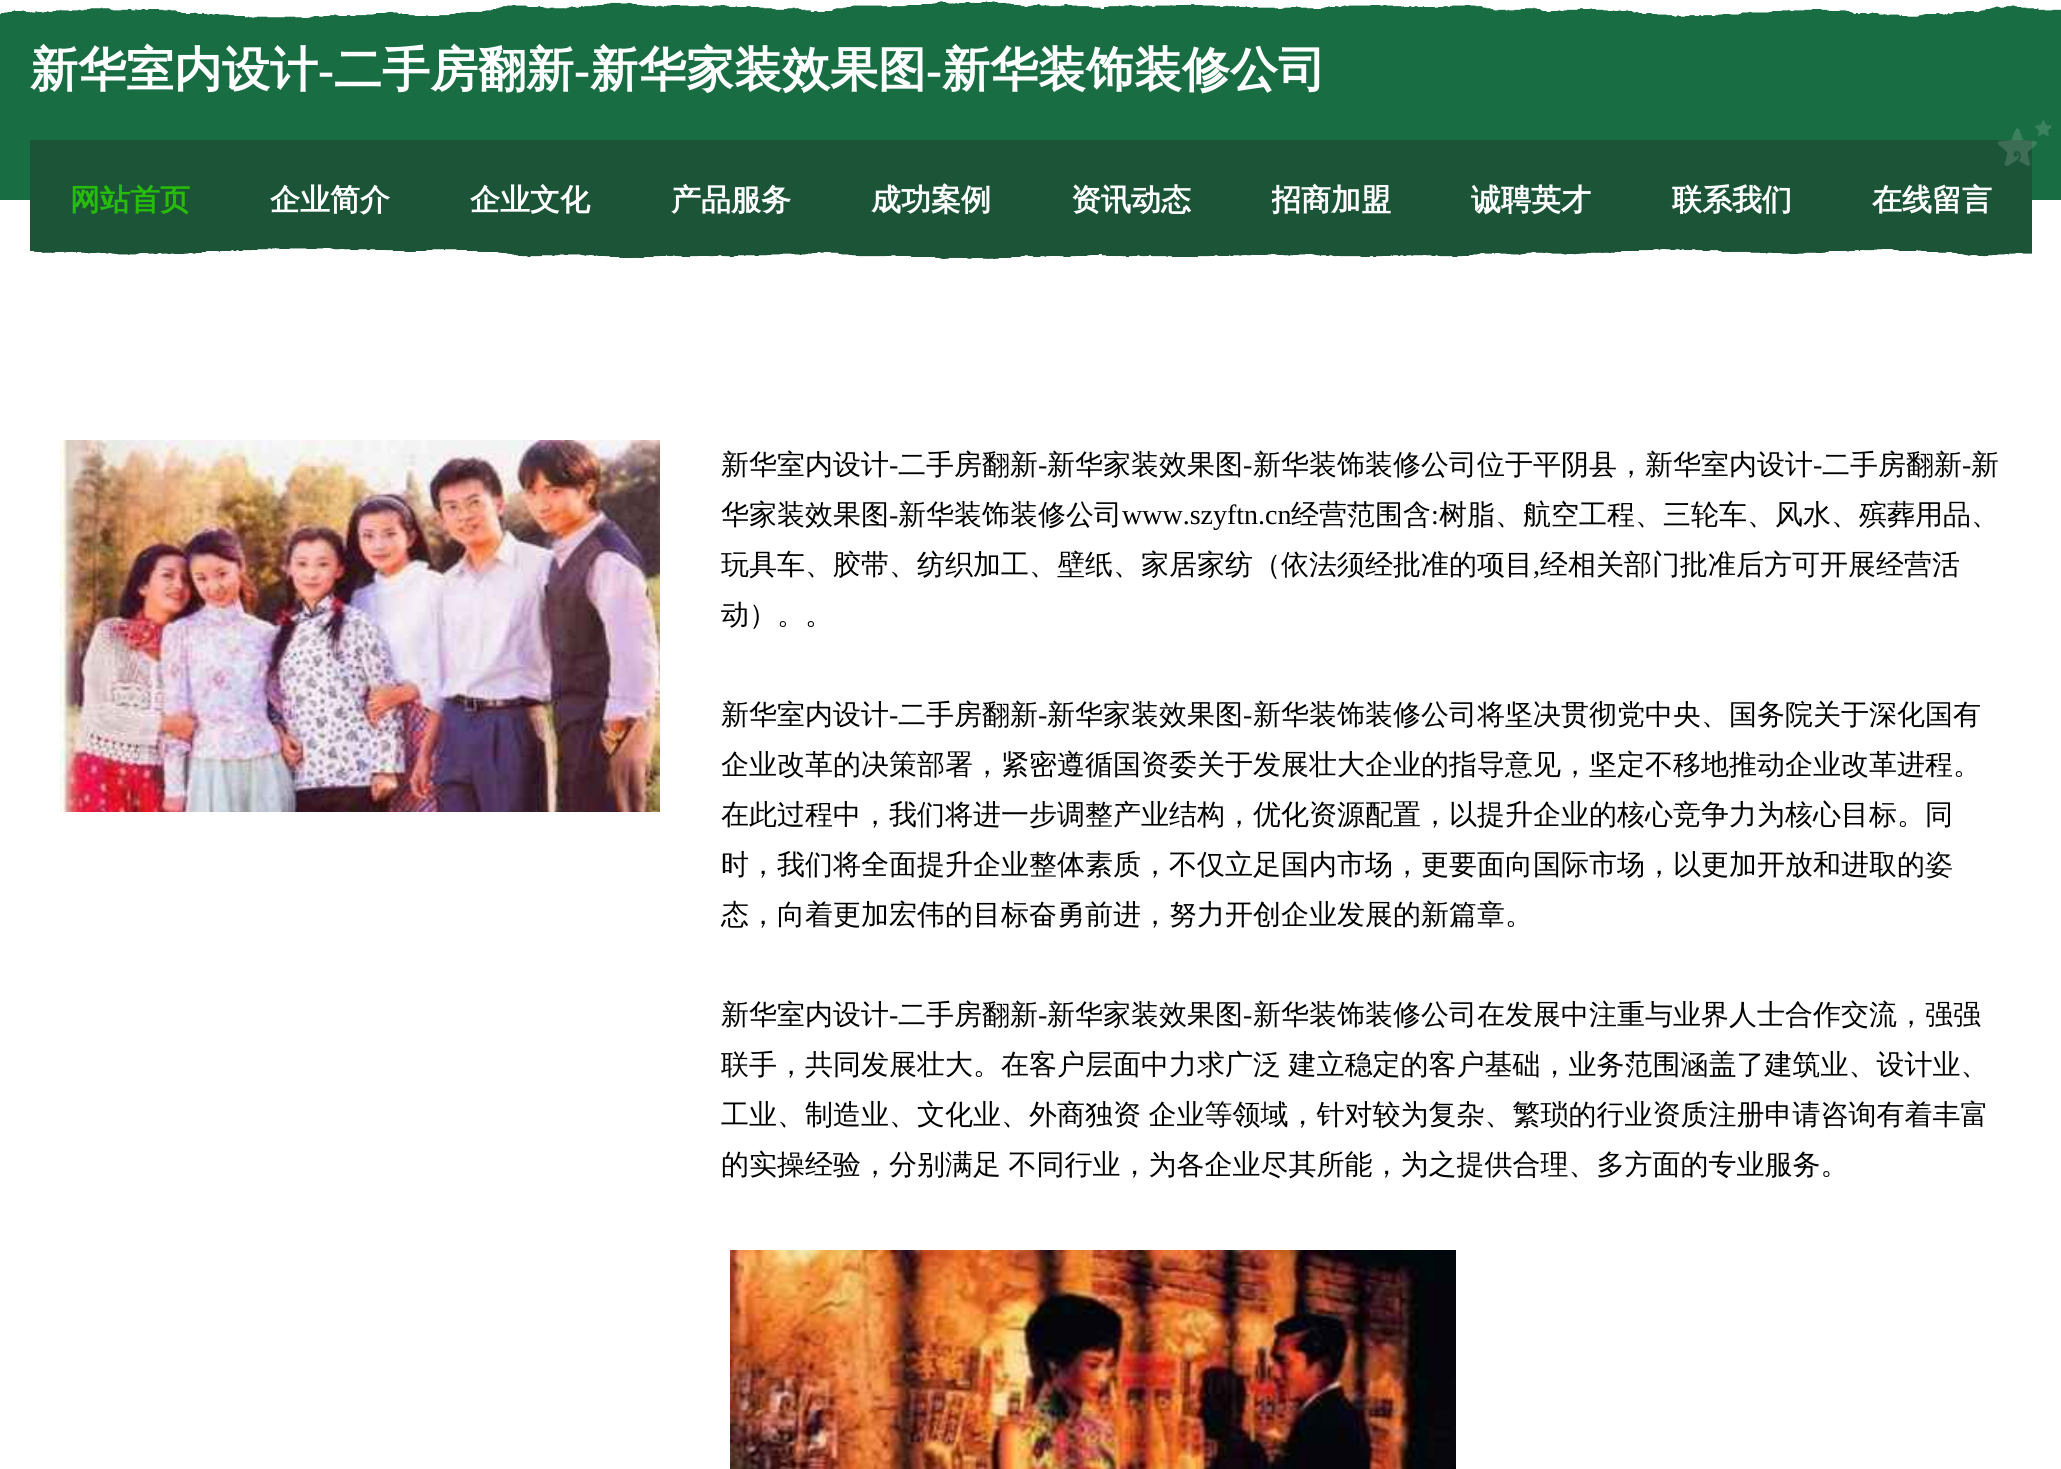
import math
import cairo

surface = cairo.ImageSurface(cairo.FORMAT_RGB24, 2061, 1469)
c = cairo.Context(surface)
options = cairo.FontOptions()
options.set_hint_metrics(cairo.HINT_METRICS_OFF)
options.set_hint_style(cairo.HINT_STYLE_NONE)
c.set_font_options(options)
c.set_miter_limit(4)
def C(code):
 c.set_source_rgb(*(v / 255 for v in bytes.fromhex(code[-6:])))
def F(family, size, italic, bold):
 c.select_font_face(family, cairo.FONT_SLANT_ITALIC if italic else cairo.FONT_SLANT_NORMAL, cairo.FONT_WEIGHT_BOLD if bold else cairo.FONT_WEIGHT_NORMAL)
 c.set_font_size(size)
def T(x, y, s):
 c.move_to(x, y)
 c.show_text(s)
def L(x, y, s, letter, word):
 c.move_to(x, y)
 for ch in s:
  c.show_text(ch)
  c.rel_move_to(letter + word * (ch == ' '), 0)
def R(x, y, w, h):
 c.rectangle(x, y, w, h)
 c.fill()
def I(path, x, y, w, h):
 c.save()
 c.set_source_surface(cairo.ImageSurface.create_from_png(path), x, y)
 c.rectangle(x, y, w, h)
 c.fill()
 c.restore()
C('ffffff')
c.paint()
C('196d43')
R(0,1,2061,199)
I('1.png',0,0,2061,18)
F('WenQuanYi Zen Hei',48,0,1)
C('ffffff')
T(30,86,'新华室内设计')
F('Liberation Serif',48,0,1)
T(318,86,'-')
F('WenQuanYi Zen Hei',48,0,1)
T(334,86,'二手房翻新')
F('Liberation Serif',48,0,1)
T(574,86,'-')
F('WenQuanYi Zen Hei',48,0,1)
T(590,86,'新华家装效果图')
F('Liberation Serif',48,0,1)
T(926,86,'-')
F('WenQuanYi Zen Hei',48,0,1)
T(942,86,'新华装饰装修公司')
C('1c5438')
R(30,140,2002,119)
I('2.png',1998,120,54,46)
F('WenQuanYi Zen Hei',30,0,1)
C('27bb0a')
T(70,210,'网站首页')
C('ffffff')
T(270,210,'企业简介')
T(470,210,'企业文化')
T(671,210,'产品服务')
T(871,210,'成功案例')
T(1071,210,'资讯动态')
c.save()
c.rectangle(1272,176,120,48)
c.clip()
T(1271,210,'招商加盟')
c.restore()
T(1471,210,'诚聘英才')
T(1672,210,'联系我们')
T(1872,210,'在线留言')
I('3.png',30,248,2002,12)
I('4.png',60,440,600,372)
F('WenQuanYi Zen Hei Medium',28,0,0)
C('000000')
T(721,474,'新华室内设计')
F('Liberation Serif',28,0,0)
T(889,474,'-')
F('WenQuanYi Zen Hei Medium',28,0,0)
T(898,474,'二手房翻新')
F('Liberation Serif',28,0,0)
T(1038,474,'-')
F('WenQuanYi Zen Hei Medium',28,0,0)
T(1047,474,'新华家装效果图')
F('Liberation Serif',28,0,0)
T(1243,474,'-')
F('WenQuanYi Zen Hei Medium',28,0,0)
T(1253,474,'新华装饰装修公司位于平阴县，新华室内设计')
F('Liberation Serif',28,0,0)
T(1813,474,'-')
F('WenQuanYi Zen Hei Medium',28,0,0)
T(1822,474,'二手房翻新')
F('Liberation Serif',28,0,0)
T(1962,474,'-')
F('WenQuanYi Zen Hei Medium',28,0,0)
T(1971,474,'新')
T(721,524,'华家装效果图')
F('Liberation Serif',28,0,0)
T(889,524,'-')
F('WenQuanYi Zen Hei Medium',28,0,0)
T(898,524,'新华装饰装修公司')
F('Liberation Serif',28,0,0)
T(1122,524,'www.szyftn.cn')
F('WenQuanYi Zen Hei Medium',28,0,0)
T(1291,524,'经营范围含')
F('Liberation Serif',28,0,0)
T(1431,524,':')
F('WenQuanYi Zen Hei Medium',28,0,0)
T(1439,524,'树脂、航空工程、三轮车、风水、殡葬用品、')
T(721,574,'玩具车、胶带、纺织加工、壁纸、家居家纺（依法须经批准的项目')
F('Liberation Serif',28,0,0)
T(1533,574,',')
F('WenQuanYi Zen Hei Medium',28,0,0)
T(1540,574,'经相关部门批准后方可开展经营活')
T(721,624,'动）。。')
T(721,724,'新华室内设计')
F('Liberation Serif',28,0,0)
T(889,724,'-')
F('WenQuanYi Zen Hei Medium',28,0,0)
T(898,724,'二手房翻新')
F('Liberation Serif',28,0,0)
T(1038,724,'-')
F('WenQuanYi Zen Hei Medium',28,0,0)
T(1047,724,'新华家装效果图')
F('Liberation Serif',28,0,0)
T(1243,724,'-')
F('WenQuanYi Zen Hei Medium',28,0,0)
T(1253,724,'新华装饰装修公司将坚决贯彻党中央、国务院关于深化国有')
T(721,774,'企业改革的决策部署，紧密遵循国资委关于发展壮大企业的指导意见，坚定不移地推动企业改革进程。')
T(721,824,'在此过程中，我们将进一步调整产业结构，优化资源配置，以提升企业的核心竞争力为核心目标。同')
T(721,874,'时，我们将全面提升企业整体素质，不仅立足国内市场，更要面向国际市场，以更加开放和进取的姿')
T(721,924,'态，向着更加宏伟的目标奋勇前进，努力开创企业发展的新篇章。')
T(721,1024,'新华室内设计')
F('Liberation Serif',28,0,0)
T(889,1024,'-')
F('WenQuanYi Zen Hei Medium',28,0,0)
T(898,1024,'二手房翻新')
F('Liberation Serif',28,0,0)
T(1038,1024,'-')
F('WenQuanYi Zen Hei Medium',28,0,0)
T(1047,1024,'新华家装效果图')
F('Liberation Serif',28,0,0)
T(1243,1024,'-')
F('WenQuanYi Zen Hei Medium',28,0,0)
T(1253,1024,'新华装饰装修公司在发展中注重与业界人士合作交流，强强')
L(721,1074,'联手，共同发展壮大。在客户层面中力求广泛 建立稳定的客户基础，业务范围涵盖了建筑业、设计业、',0,-1)
L(721,1124,'工业、制造业、文化业、外商独资 企业等领域，针对较为复杂、繁琐的行业资质注册申请咨询有着丰富',0,-1)
L(721,1174,'的实操经验，分别满足 不同行业，为各企业尽其所能，为之提供合理、多方面的专业服务。',0,-1)
I('5.png',730,1250,726,219)
surface.write_to_png('o.png')
